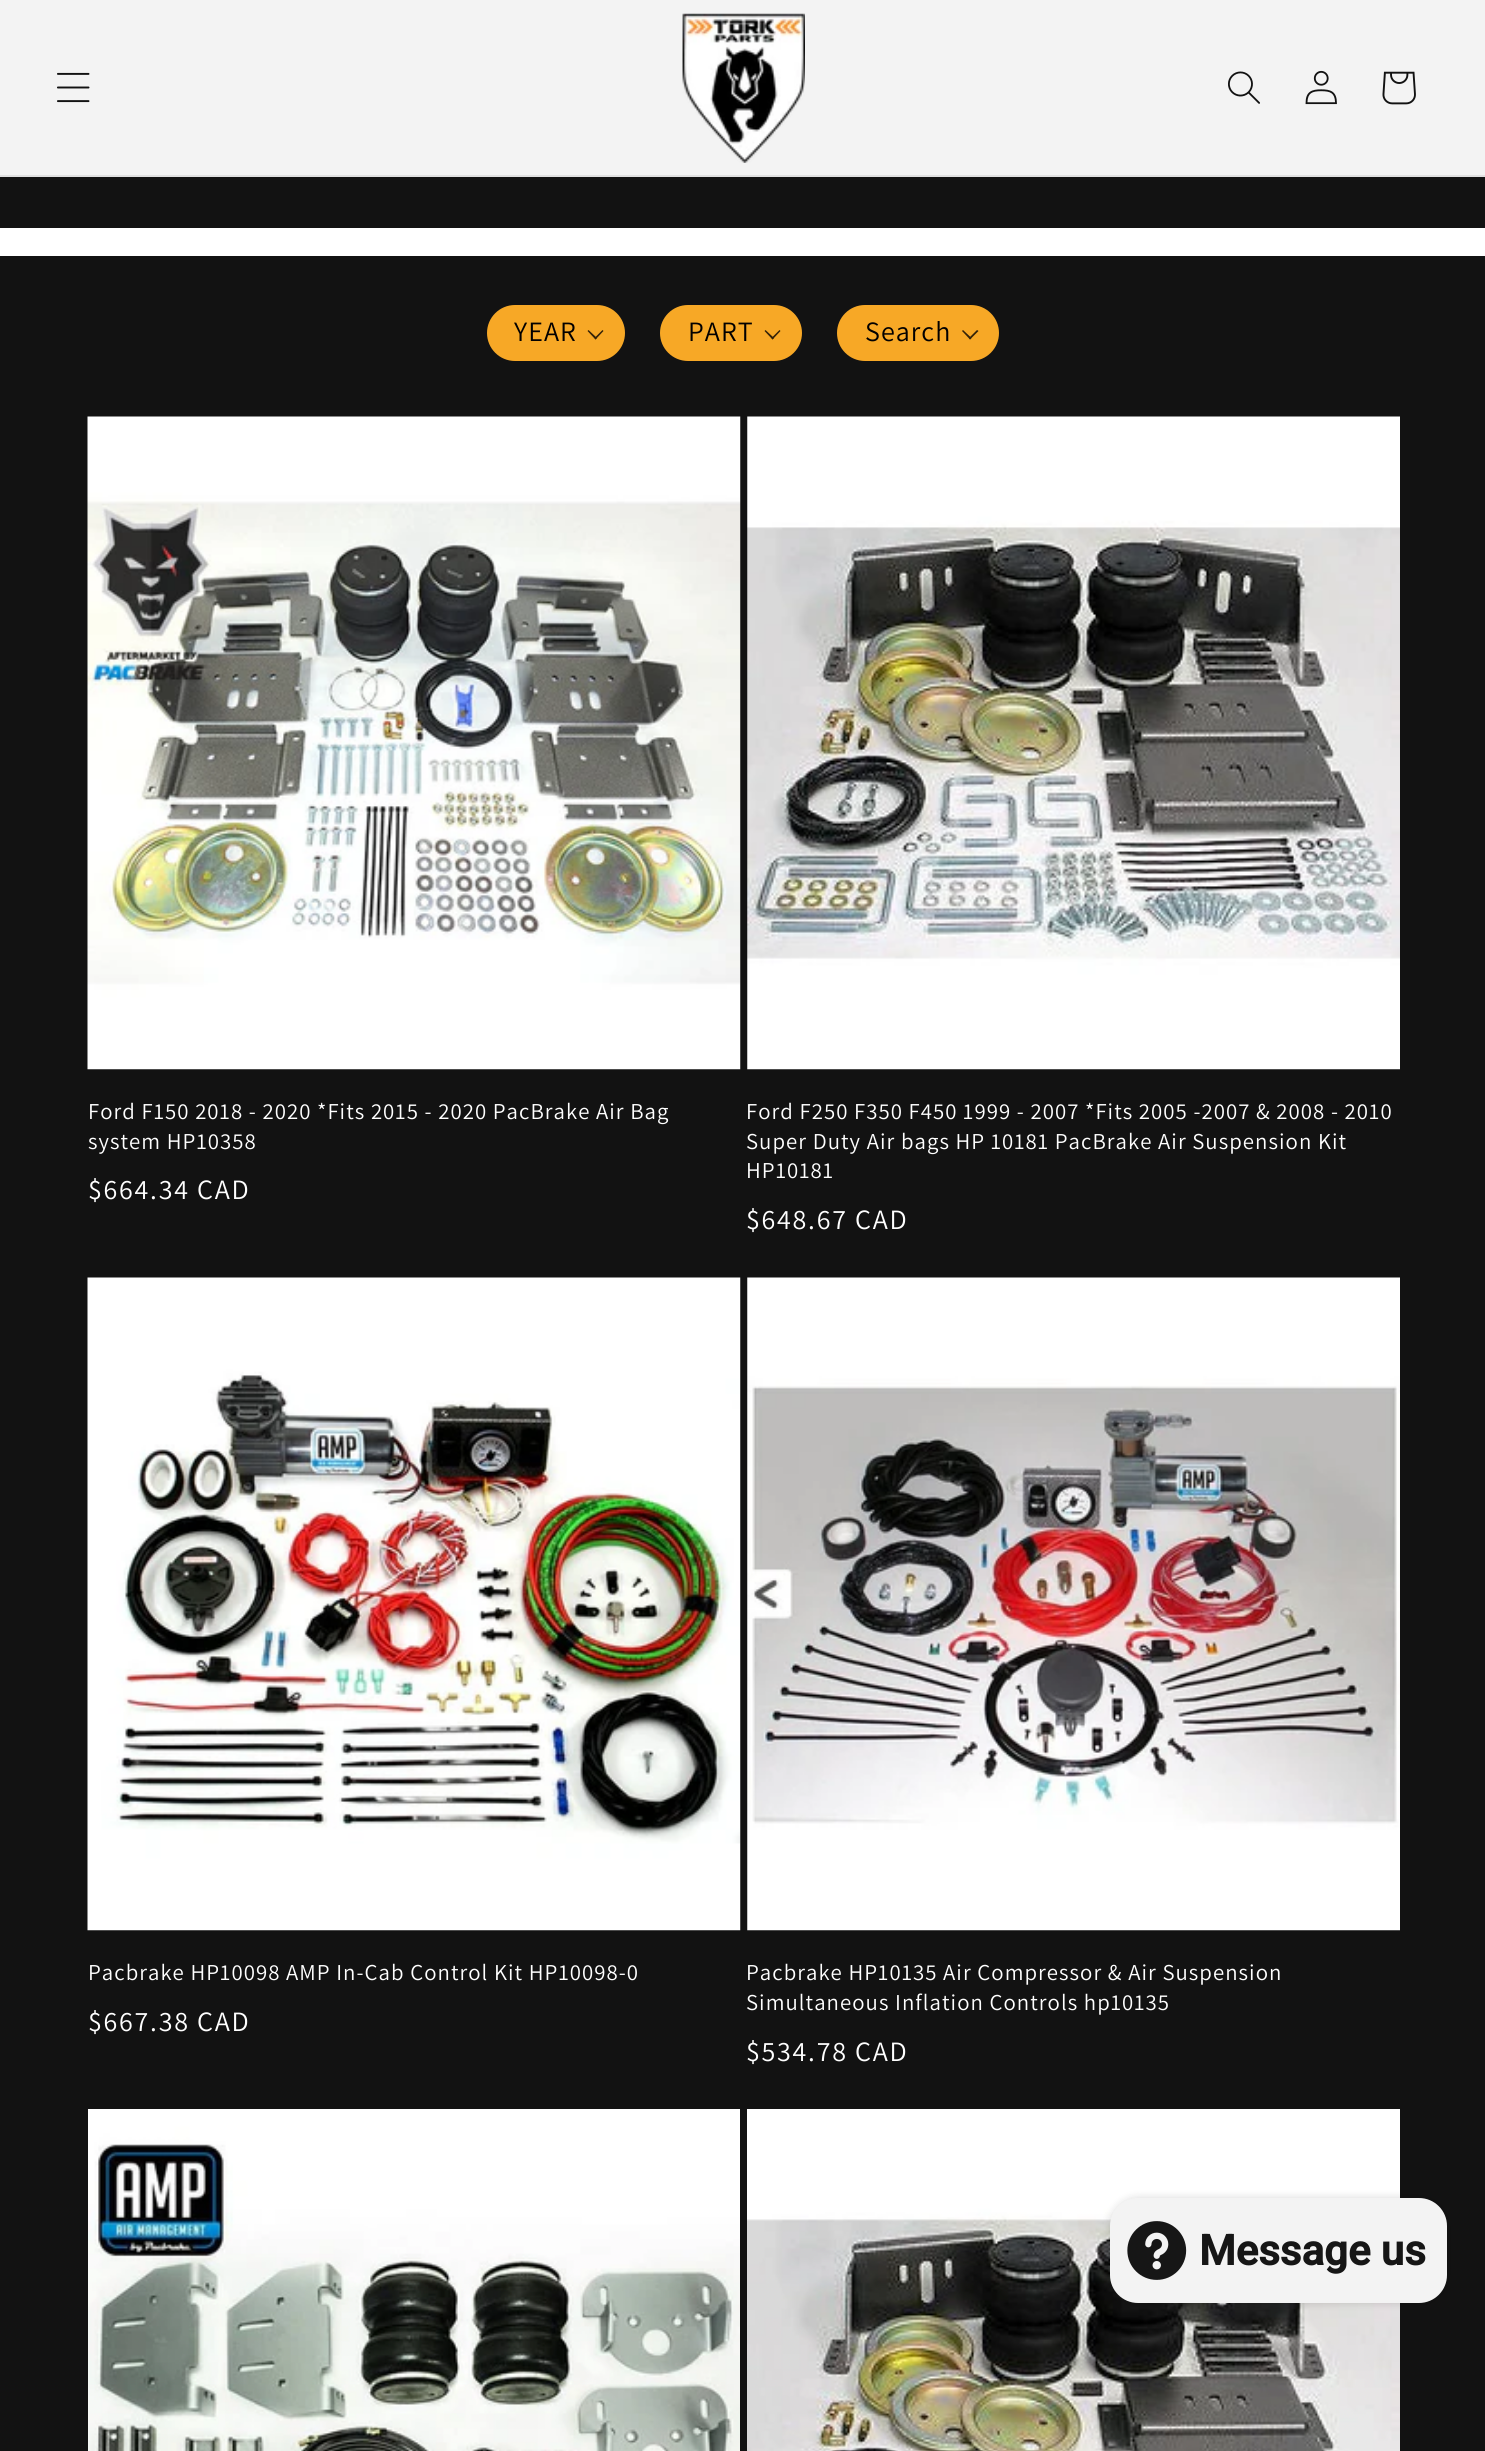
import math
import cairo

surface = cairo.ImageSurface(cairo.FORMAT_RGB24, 1485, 2451)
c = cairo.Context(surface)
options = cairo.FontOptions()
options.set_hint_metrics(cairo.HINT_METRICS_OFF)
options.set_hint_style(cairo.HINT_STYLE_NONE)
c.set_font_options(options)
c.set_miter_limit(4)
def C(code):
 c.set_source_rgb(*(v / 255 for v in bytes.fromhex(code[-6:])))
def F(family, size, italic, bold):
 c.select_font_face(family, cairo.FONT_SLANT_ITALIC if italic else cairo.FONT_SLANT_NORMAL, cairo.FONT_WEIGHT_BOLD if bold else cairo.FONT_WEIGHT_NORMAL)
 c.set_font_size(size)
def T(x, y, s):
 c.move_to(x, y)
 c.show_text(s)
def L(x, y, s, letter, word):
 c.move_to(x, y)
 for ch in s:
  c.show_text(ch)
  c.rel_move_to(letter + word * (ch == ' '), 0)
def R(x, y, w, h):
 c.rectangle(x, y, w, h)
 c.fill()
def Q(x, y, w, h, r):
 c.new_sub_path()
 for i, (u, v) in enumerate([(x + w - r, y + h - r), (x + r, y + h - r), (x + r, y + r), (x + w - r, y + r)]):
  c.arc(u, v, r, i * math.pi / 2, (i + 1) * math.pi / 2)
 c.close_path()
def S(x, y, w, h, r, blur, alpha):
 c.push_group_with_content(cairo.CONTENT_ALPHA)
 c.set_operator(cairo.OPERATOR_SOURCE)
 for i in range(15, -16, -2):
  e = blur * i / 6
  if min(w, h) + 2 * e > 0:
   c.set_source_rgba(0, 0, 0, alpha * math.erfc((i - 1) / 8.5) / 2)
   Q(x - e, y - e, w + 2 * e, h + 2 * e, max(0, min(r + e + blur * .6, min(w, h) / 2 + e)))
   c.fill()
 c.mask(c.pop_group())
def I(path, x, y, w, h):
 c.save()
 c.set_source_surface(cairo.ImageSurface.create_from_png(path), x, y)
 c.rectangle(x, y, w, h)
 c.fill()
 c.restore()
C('ffffff')
c.paint()
C('f3f3f3')
R(0,0,1485,175)
C('e1e1e1')
R(0,175,1485,2)
I('1.png',57,72,33,31)
I('2.png',682,13,123,150)
I('3.png',1228,71,32,33)
I('4.png',1305,70,32,35)
I('5.png',1382,71,34,34)
C('121212')
R(0,177,1485,51)
R(0,256,1485,2195)
C('f7a826')
Q(487,305,138,56,28)
c.fill()
F('Assistant',28,0,0)
C('020000')
L(514,341,'YEAR',1.05,0)
C('332208')
c.new_path()
c.move_to(602.5,330)
c.line_to(603.5,331)
c.line_to(595.5,339.5)
c.line_to(594.5,338)
c.close_path()
c.fill()
c.new_path()
c.move_to(588.5,330)
c.line_to(597,338)
c.line_to(595.5,339.5)
c.line_to(587.5,331)
c.close_path()
c.fill()
C('f7a826')
Q(660,305,142,56,28)
c.fill()
C('020000')
L(688,341,'PART',1.05,0)
C('332208')
c.new_path()
c.move_to(779.5,330)
c.line_to(780.5,331)
c.line_to(772.5,339.5)
c.line_to(771.5,338)
c.close_path()
c.fill()
c.new_path()
c.move_to(765.5,330)
c.line_to(774,338)
c.line_to(772.5,339.5)
c.line_to(764.5,331)
c.close_path()
c.fill()
C('f7a826')
Q(837,305,162,56,28)
c.fill()
C('020000')
L(865,341,'Search',1.05,0)
C('332208')
c.new_path()
c.move_to(977,330)
c.line_to(978.5,331)
c.line_to(970,339.5)
c.line_to(969,338)
c.close_path()
c.fill()
c.new_path()
c.move_to(963,330)
c.line_to(971.5,338)
c.line_to(970,339.5)
c.line_to(962,331)
c.close_path()
c.fill()
I('6.png',87,416,654,654)
F('Assistant',22.75,0,0)
C('ffffff')
L(88,1119,'Ford F150 2018 - 2020 *Fits 2015 - 2020 PacBrake Air Bag',1.05,0)
L(88,1149,'system HP10358',1.05,0)
F('Assistant',28,0,0)
L(88,1199,'$664.34 CAD',1.75,0)
I('7.png',747,416,653,654)
F('Assistant',22.75,0,0)
L(746,1119,'Ford F250 F350 F450 1999 - 2007 *Fits 2005 -2007 & 2008 - 2010',1.05,0)
L(746,1149,'Super Duty Air bags HP 10181 PacBrake Air Suspension Kit',1.05,0)
L(746,1178,'HP10181',1.05,0)
F('Assistant',28,0,0)
L(746,1229,'$648.67 CAD',1.75,0)
I('8.png',87,1277,654,654)
F('Assistant',22.75,0,0)
L(88,1980,'Pacbrake HP10098 AMP In-Cab Control Kit HP10098-0',1.05,0)
F('Assistant',28,0,0)
L(88,2031,'$667.38 CAD',1.75,0)
I('9.png',747,1277,653,654)
F('Assistant',22.75,0,0)
L(746,1980,'Pacbrake HP10135 Air Compressor & Air Suspension',1.05,0)
L(746,2010,'Simultaneous Inflation Controls hp10135',1.05,0)
F('Assistant',28,0,0)
L(746,2061,'$534.78 CAD',1.75,0)
I('10.png',88,2109,652,342)
I('11.png',747,2109,653,342)
C('000000')
S(1110,2198,337,105,28,4.5,.15)
C('f3f3f3')
Q(1110,2198,337,105,28)
c.fill()
I('12.png',1127,2221,60,59)
F('Roboto',42,0,1)
C('161616')
T(1199,2265,'Message us')
surface.write_to_png('o.png')
